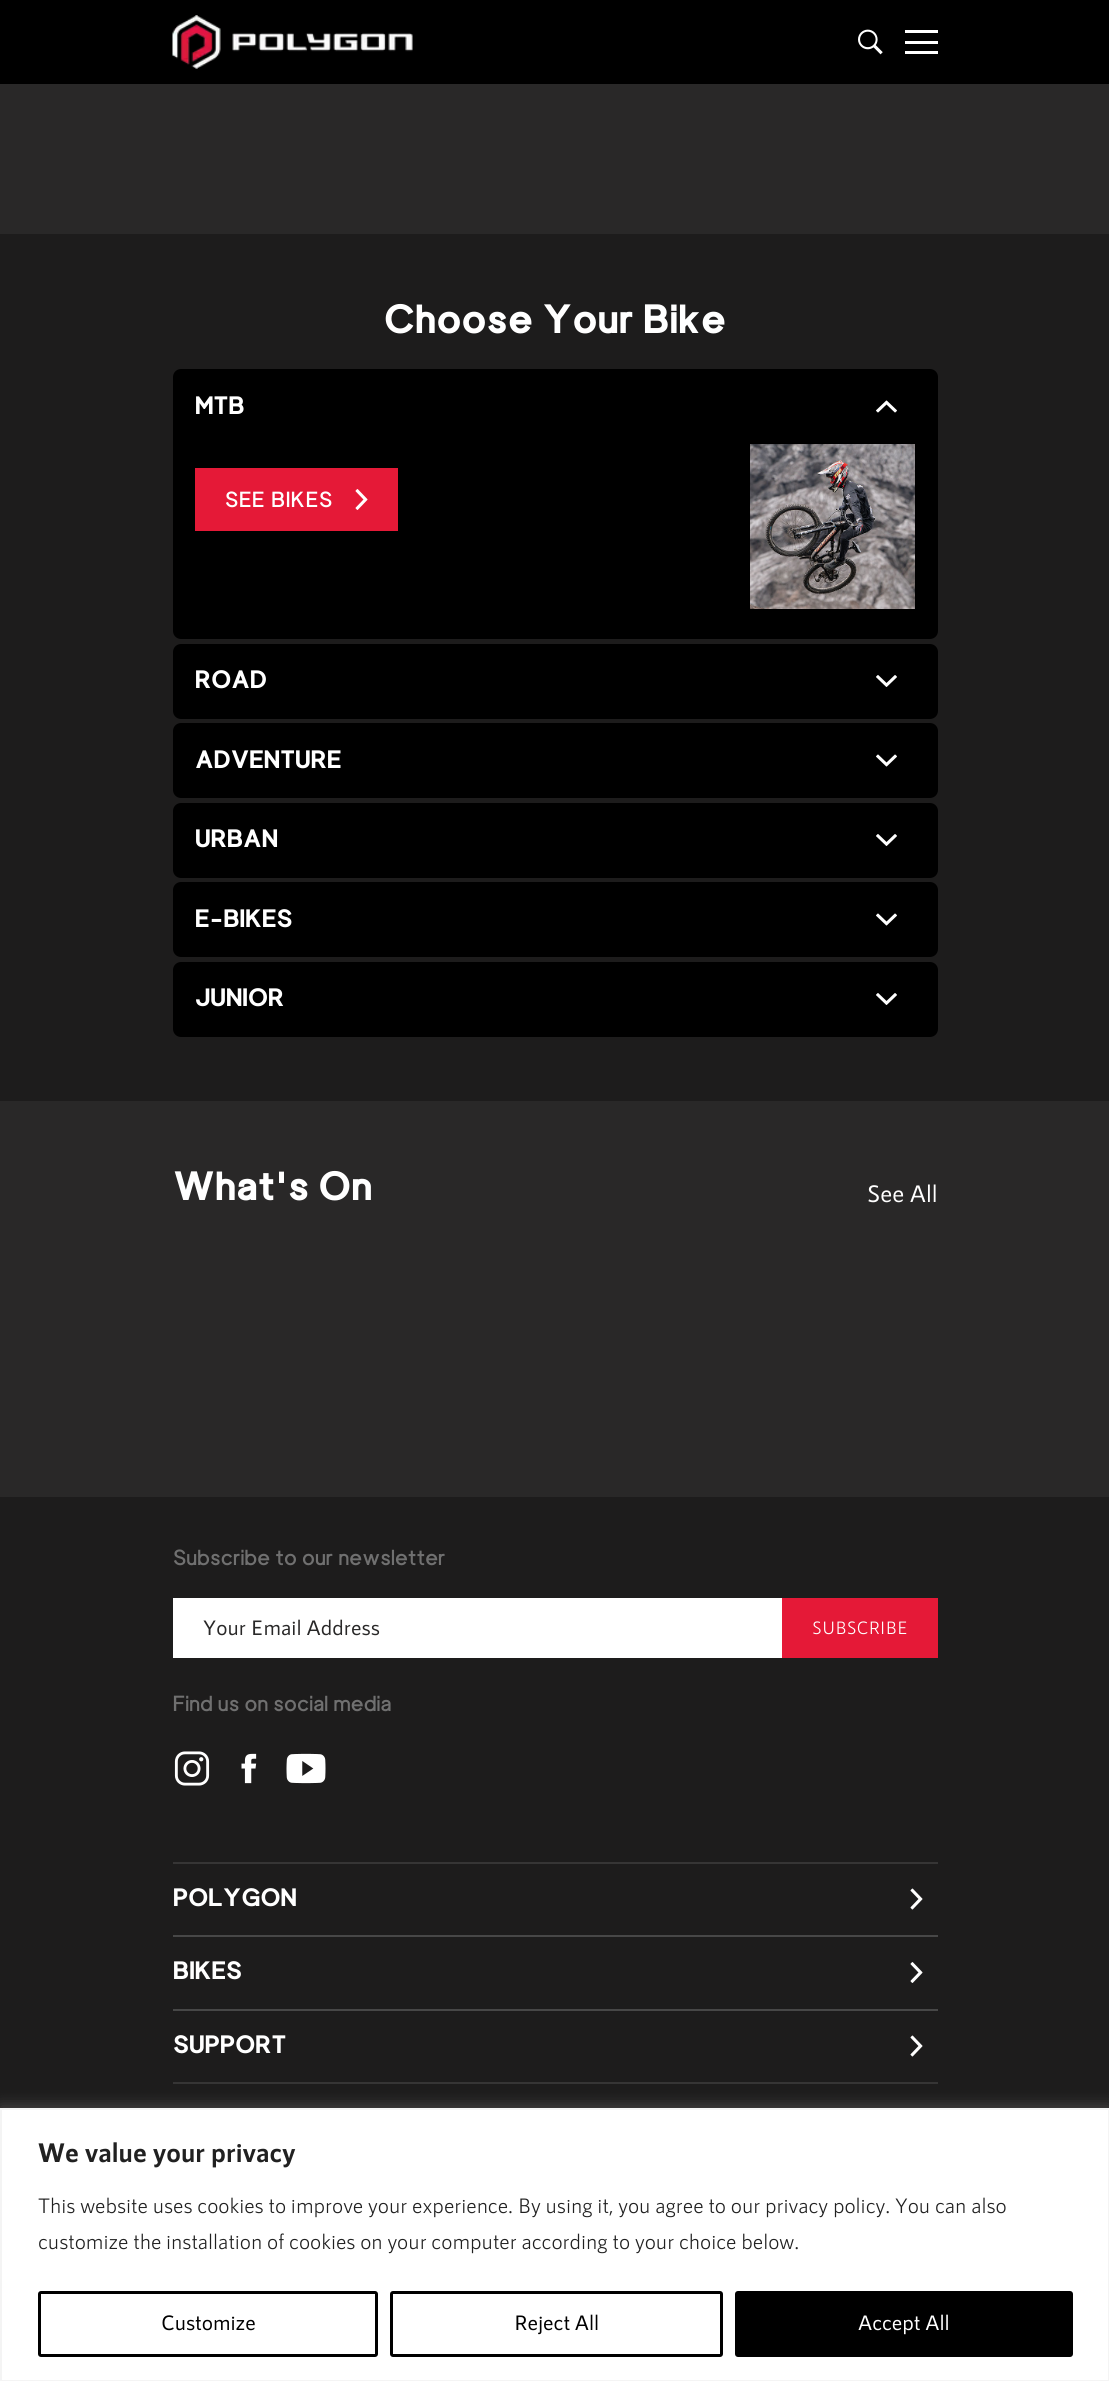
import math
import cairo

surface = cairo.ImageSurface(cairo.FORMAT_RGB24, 1109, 2381)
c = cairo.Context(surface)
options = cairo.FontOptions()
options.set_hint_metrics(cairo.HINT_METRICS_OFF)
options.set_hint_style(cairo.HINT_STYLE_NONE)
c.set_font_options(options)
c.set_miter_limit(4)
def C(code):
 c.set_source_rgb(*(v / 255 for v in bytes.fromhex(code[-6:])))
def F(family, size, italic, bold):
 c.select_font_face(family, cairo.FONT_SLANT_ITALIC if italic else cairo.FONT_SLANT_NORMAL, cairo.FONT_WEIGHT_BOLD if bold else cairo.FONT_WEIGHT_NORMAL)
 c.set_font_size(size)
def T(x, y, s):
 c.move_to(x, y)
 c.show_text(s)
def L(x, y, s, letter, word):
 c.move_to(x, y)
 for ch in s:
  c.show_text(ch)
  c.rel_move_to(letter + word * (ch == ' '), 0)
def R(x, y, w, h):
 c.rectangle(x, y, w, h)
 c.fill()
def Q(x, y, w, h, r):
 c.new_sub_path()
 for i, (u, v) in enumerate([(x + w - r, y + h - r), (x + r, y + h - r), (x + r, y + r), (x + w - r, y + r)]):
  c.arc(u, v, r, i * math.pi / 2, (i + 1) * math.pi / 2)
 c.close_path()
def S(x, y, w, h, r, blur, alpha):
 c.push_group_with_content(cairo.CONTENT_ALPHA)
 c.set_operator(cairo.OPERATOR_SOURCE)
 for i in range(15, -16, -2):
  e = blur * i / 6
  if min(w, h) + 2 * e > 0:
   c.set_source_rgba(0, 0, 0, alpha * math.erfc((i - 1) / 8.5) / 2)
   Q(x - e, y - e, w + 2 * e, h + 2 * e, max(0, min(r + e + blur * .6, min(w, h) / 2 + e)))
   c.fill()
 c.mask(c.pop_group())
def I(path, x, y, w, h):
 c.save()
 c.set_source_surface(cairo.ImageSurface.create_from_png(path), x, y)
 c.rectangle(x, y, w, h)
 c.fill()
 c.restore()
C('292828')
c.paint()
C('000000')
R(0,0,1109,84)
I('1.png',172,15,241,54)
I('2.png',858,29,25,26)
C('ffffff')
R(905,30,33,3)
R(905,41,33,3)
R(905,51,33,3)
C('1d1c1c')
R(0,234,1109,867)
F('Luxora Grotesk',39,0,1)
C('ffffff')
T(384,333,'Choose Your Bike')
C('000000')
Q(173,369,765,270,8)
c.fill()
F('Luxora Grotesk',24,0,1)
C('ffffff')
T(195,414,'MTB')
I('3.png',876,400,21,13)
C('e51937')
R(195,468,203,63)
F('Luxora Grotesk',21,0,0)
C('ffffff')
L(225,507,'SEE BIKES',1,0)
I('4.png',355,489,13,21)
I('5.png',750,444,165,165)
C('000000')
Q(173,644,765,75,8)
c.fill()
F('Luxora Grotesk',24,0,1)
C('ffffff')
T(195,688,'ROAD')
I('6.png',876,675,21,12)
C('000000')
Q(173,723,765,75,8)
c.fill()
C('ffffff')
T(195,768,'ADVENTURE')
I('7.png',876,754,21,13)
C('000000')
Q(173,803,765,75,8)
c.fill()
C('ffffff')
T(195,847,'URBAN')
I('6.png',876,834,21,12)
C('000000')
Q(173,882,765,75,8)
c.fill()
C('ffffff')
T(195,927,'E-BIKES')
I('7.png',876,913,21,13)
C('000000')
Q(173,962,765,75,8)
c.fill()
C('ffffff')
T(195,1006,'JUNIOR')
I('6.png',876,993,21,12)
F('Luxora Grotesk',39,0,1)
T(173,1200,'What\'s On')
F('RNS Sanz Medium',24,0,0)
T(867,1202,'See All')
C('1d1c1c')
R(0,1497,1109,611)
F('Luxora Grotesk',21,0,0)
C('707070')
L(173,1565,'Subscribe to our newsletter',.05,0)
C('ffffff')
R(173,1598,609,60)
F('RNS Sanz Medium',21,0,0)
C('292828')
L(203,1635,'Your Email Address',.05,0)
C('e51937')
R(782,1598,156,60)
F('RNS Sanz',18,0,0)
C('ffffff')
L(812,1634,'SUBSCRIBE',.05,0)
F('Luxora Grotesk',21,0,0)
C('707070')
L(173,1711,'Find us on social media',.05,0)
I('8.png',174,1751,36,35)
I('9.png',241,1753,16,31)
I('10.png',286,1753,40,31)
C('363535')
R(173,1862,765,2)
F('Luxora Grotesk',24,0,1)
C('ffffff')
T(173,1906,'POLYGON')
I('11.png',910,1888,13,22)
C('474747')
R(173,1935,765,2)
C('ffffff')
T(173,1979,'BIKES')
I('12.png',910,1962,13,21)
C('474747')
R(173,2009,765,2)
C('363535')
R(173,2082,765,2)
C('ffffff')
T(173,2053,'SUPPORT')
I('11.png',910,2035,13,22)
C('acabab')
S(0,2106,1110,275,0,7.5,.3)
C('ffffff')
c.rectangle(1,2109,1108,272)
c.fill_preserve()
C('f4f4f4')
c.stroke()
F('RNS Sanz',27,0,1)
C('212121')
T(38,2162,'We value your privacy')
F('RNS Sanz',21,0,0)
T(38,2213,'This website uses cookies to improve your experience. By using it, you agree to our privacy policy. You can also')
T(38,2249,'customize the installation of cookies on your computer according to your choice below.')
Q(39.5,2292.5,337,63,1.5)
C('000000')
c.set_line_width(3)
c.stroke()
F('RNS Sanz Medium',21,0,0)
T(161,2330,'Customize')
Q(391.5,2292.5,330,63,1.5)
c.stroke()
T(514,2330,'Reject All')
Q(736.5,2292.5,335,63,1.5)
c.fill_preserve()
c.stroke()
C('ffffff')
T(858,2330,'Accept All')
surface.write_to_png('o.png')
